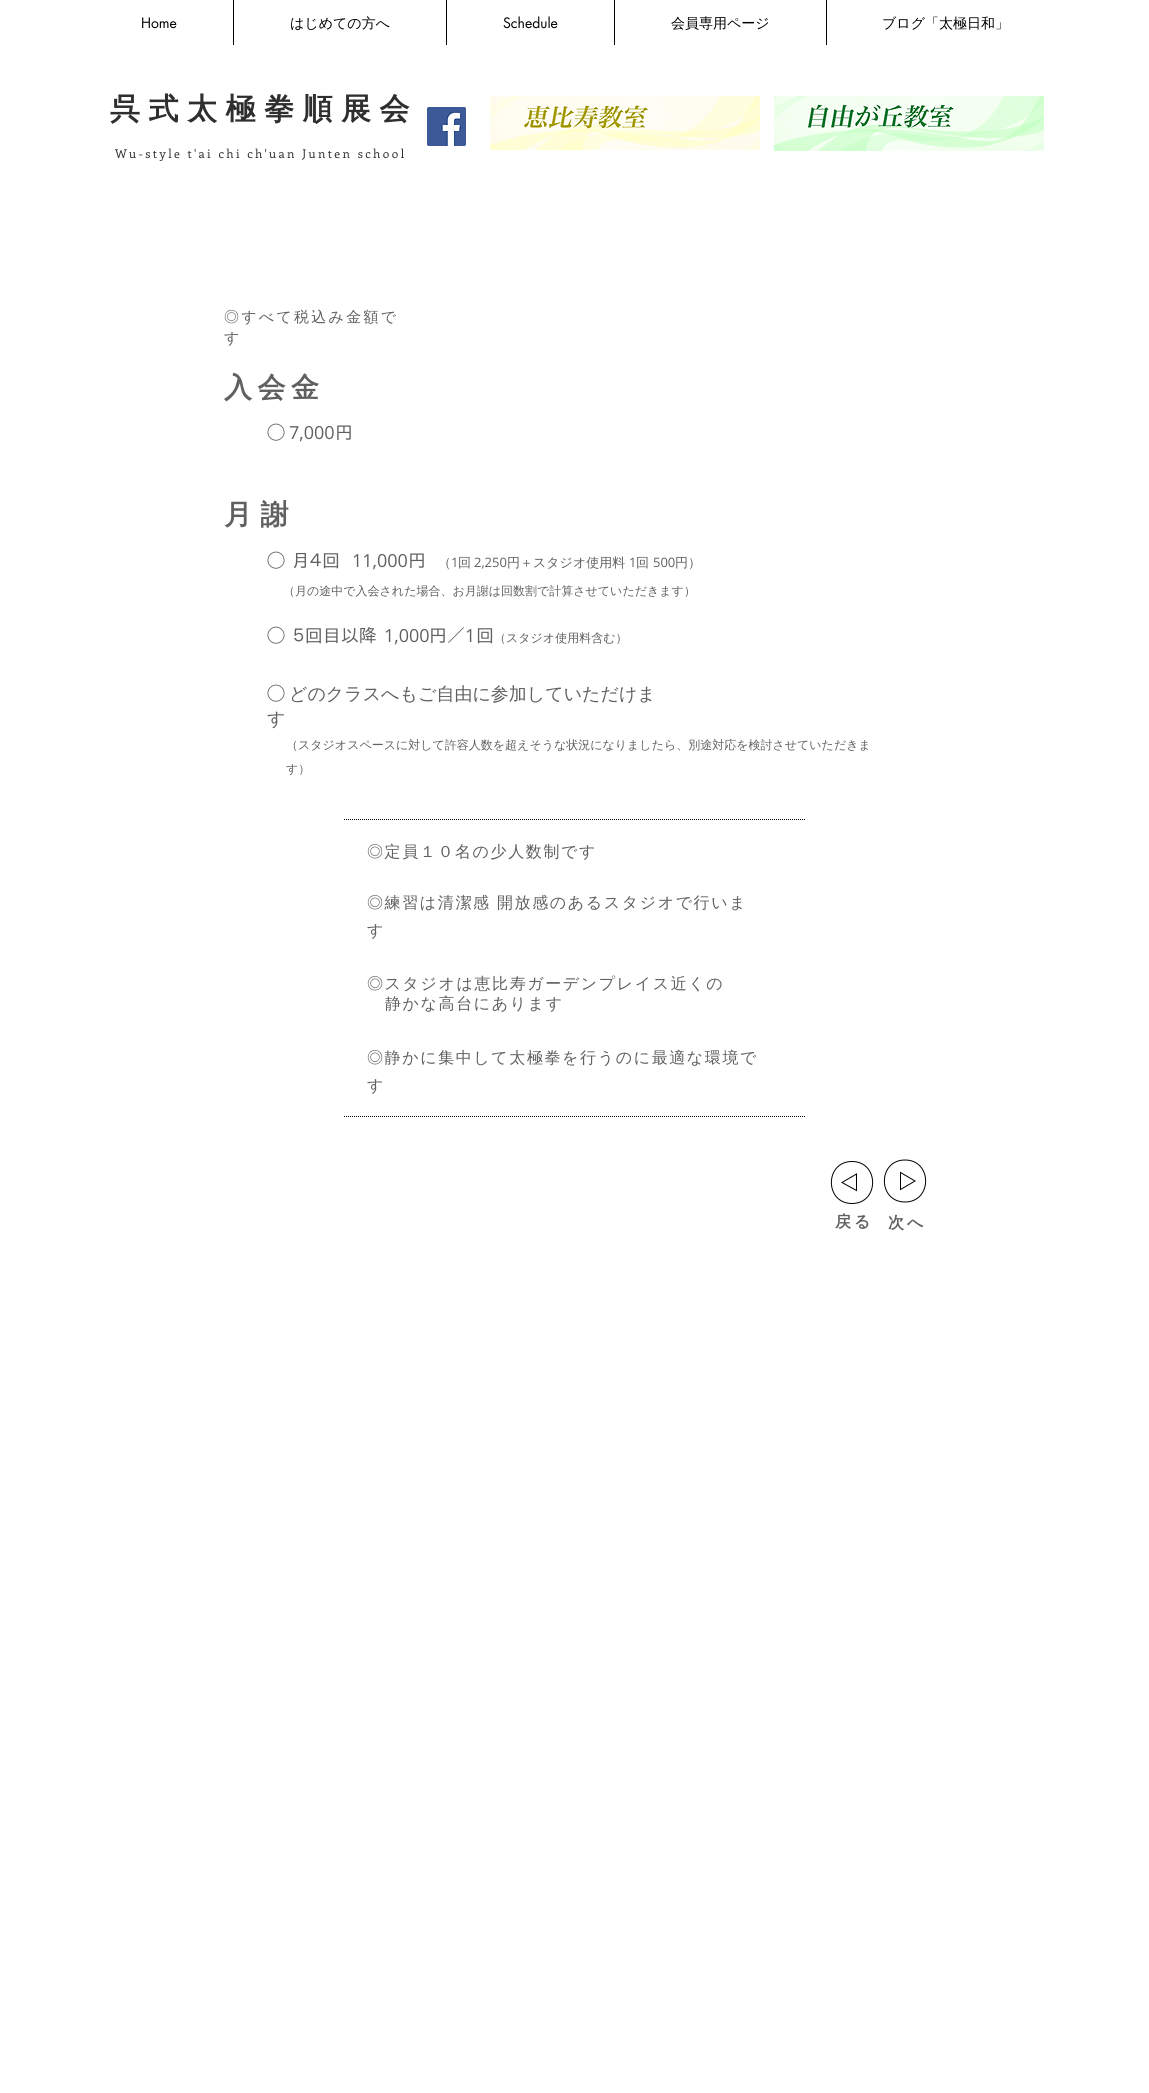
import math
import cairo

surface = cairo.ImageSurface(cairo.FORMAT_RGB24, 1149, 2093)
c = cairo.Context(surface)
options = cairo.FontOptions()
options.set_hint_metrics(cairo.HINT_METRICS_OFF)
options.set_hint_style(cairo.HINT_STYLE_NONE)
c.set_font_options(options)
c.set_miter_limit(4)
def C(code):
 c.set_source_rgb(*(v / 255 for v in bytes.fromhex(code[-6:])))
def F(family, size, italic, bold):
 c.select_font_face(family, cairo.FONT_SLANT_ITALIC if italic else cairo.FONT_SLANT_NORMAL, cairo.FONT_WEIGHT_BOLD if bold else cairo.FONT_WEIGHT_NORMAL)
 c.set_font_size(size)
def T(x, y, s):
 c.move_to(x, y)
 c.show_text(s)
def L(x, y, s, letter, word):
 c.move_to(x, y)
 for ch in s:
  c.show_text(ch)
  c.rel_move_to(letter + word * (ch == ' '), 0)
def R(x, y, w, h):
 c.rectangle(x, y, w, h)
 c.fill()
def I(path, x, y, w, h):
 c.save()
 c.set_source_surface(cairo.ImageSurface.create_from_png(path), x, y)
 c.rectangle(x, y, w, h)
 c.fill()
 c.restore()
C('ffffff')
c.paint()
F('futura',14,0,0)
C('000000')
T(141,28,'Home')
R(233,0,1,45)
F('WenQuanYi Zen Hei Medium',14,0,0)
T(290,28,'はじめての方へ')
R(446,0,1,45)
F('futura',14,0,0)
T(503,28,'Schedule')
R(614,0,1,45)
F('WenQuanYi Zen Hei Medium',14,0,0)
T(671,28,'会員専用ページ')
R(826,0,1,45)
T(882,28,'ブログ「太極日和」')
F('WenQuanYi Zen Hei',30,0,1)
C('2f2e2e')
L(110,119,'呉式太極拳順展会',8.5,0)
I('1.png',427,107,39,39)
I('2.png',490,96,270,54)
I('3.png',774,96,270,55)
F('Enriqueta',12,0,0)
L(115,158,'Wu-style t\'ai chi ch\'uan Junten school',2.4,0)
F('WenQuanYi Zen Hei Medium',15,0,0)
C('606060')
L(224,322,'◎すべて税込み金額で',2.25,0)
L(224,343,'す',2.25,0)
F('WenQuanYi Zen Hei',28,0,1)
L(224,397,'入会金',5.5,0)
F('IPAPGothic',18,0,0)
T(267,439,'◯')
F('Open Sans',18,0,0)
T(289,439,'7,000')
F('IPAPGothic',18,0,0)
T(335,439,'円')
F('WenQuanYi Zen Hei',28,0,1)
T(224,524,'月 謝')
F('IPAPGothic',18,0,0)
L(267,567,'◯ 月４回',0,2)
F('Open Sans',18,0,0)
T(352,567,'11,000')
F('IPAPGothic',18,0,0)
T(408,567,'円')
F('WenQuanYi Zen Hei Medium',13,0,0)
T(438,567,'（')
F('Open Sans',13,0,0)
T(451,567,'1')
F('WenQuanYi Zen Hei Medium',13,0,0)
T(458,567,'回')
F('Open Sans',13,0,0)
T(474,567,'2,250')
F('WenQuanYi Zen Hei Medium',13,0,0)
T(507,567,'円＋スタジオ使用料')
F('Open Sans',13,0,0)
T(629,567,'1')
F('WenQuanYi Zen Hei Medium',13,0,0)
T(636,567,'回')
F('Open Sans',13,0,0)
T(653,567,'500')
F('WenQuanYi Zen Hei Medium',13,0,0)
T(675,567,'円）')
F('WenQuanYi Zen Hei Medium',12,0,0)
T(283,595,'（月の途中で入会された場合、お月謝は回数割で計算させていただきます）')
F('IPAPGothic',18,0,0)
L(267,642,'◯ ５回目以降',0,3)
F('Open Sans',18,0,0)
T(384,642,'1,000')
F('IPAPGothic',18,0,0)
T(429,642,'円／')
F('Open Sans',18,0,0)
T(465,642,'1')
F('IPAPGothic',18,0,0)
T(476,642,'回')
F('WenQuanYi Zen Hei Medium',12,0,0)
T(494,642,'（スタジオ使用料含む）')
F('IPAPGothic',18,0,0)
T(267,700,'◯')
F('WenQuanYi Zen Hei Medium',18,0,0)
T(289,700,'どのクラスへもご自由に参加していただけま')
T(267,725,'す')
F('WenQuanYi Zen Hei Medium',12,0,0)
T(286,749,'（スタジオスペースに対して許容人数を超えそうな状況になりましたら、別途対応を検討させていただきま')
T(286,773,'す）')
c.new_path()
c.move_to(344,819.5)
c.line_to(806,819.5)
C('000000')
c.set_line_width(1)
c.set_dash([1,1])
c.stroke()
F('WenQuanYi Zen Hei Medium',16,0,0)
C('606060')
L(367,857,'◎定員１０名の少人数制です',1.6,0)
L(367,908,'◎練習は清潔感 開放感のあるスタジオで行いま',1.6,0)
L(367,936,'す',1.6,0)
L(367,989,'◎スタジオは恵比寿ガーデンプレイス近くの',1.6,0)
L(385,1009,'静かな高台にあります',1.6,0)
L(367,1063,'◎静かに集中して太極拳を行うのに最適な環境で',1.6,0)
L(367,1091,'す',1.6,0)
c.new_path()
c.move_to(344,1116.5)
c.line_to(806,1116.5)
C('000000')
c.stroke()
c.new_path()
c.move_to(852,1203.5)
c.curve_to(879.5,1203.5,879.5,1161.5,852,1161.5)
c.curve_to(824.5,1161.5,824.5,1203.5,852,1203.5)
c.close_path()
c.move_to(856.5,1174)
c.line_to(856.5,1190.5)
c.line_to(842,1182.5)
c.close_path()
c.set_dash([])
c.stroke()
F('WenQuanYi Zen Hei',16,0,1)
C('606060')
L(835,1227,'戻る',3,0)
c.new_path()
c.move_to(905,1160)
c.curve_to(877.5,1160,877.5,1202,905,1202)
c.curve_to(932.5,1202,932.5,1160,905,1160)
c.close_path()
c.move_to(900.5,1189.5)
c.line_to(900.5,1172.5)
c.line_to(915,1181)
c.close_path()
C('000000')
c.stroke()
C('606060')
L(888,1228,'次へ',3,0)
surface.write_to_png('o.png')
